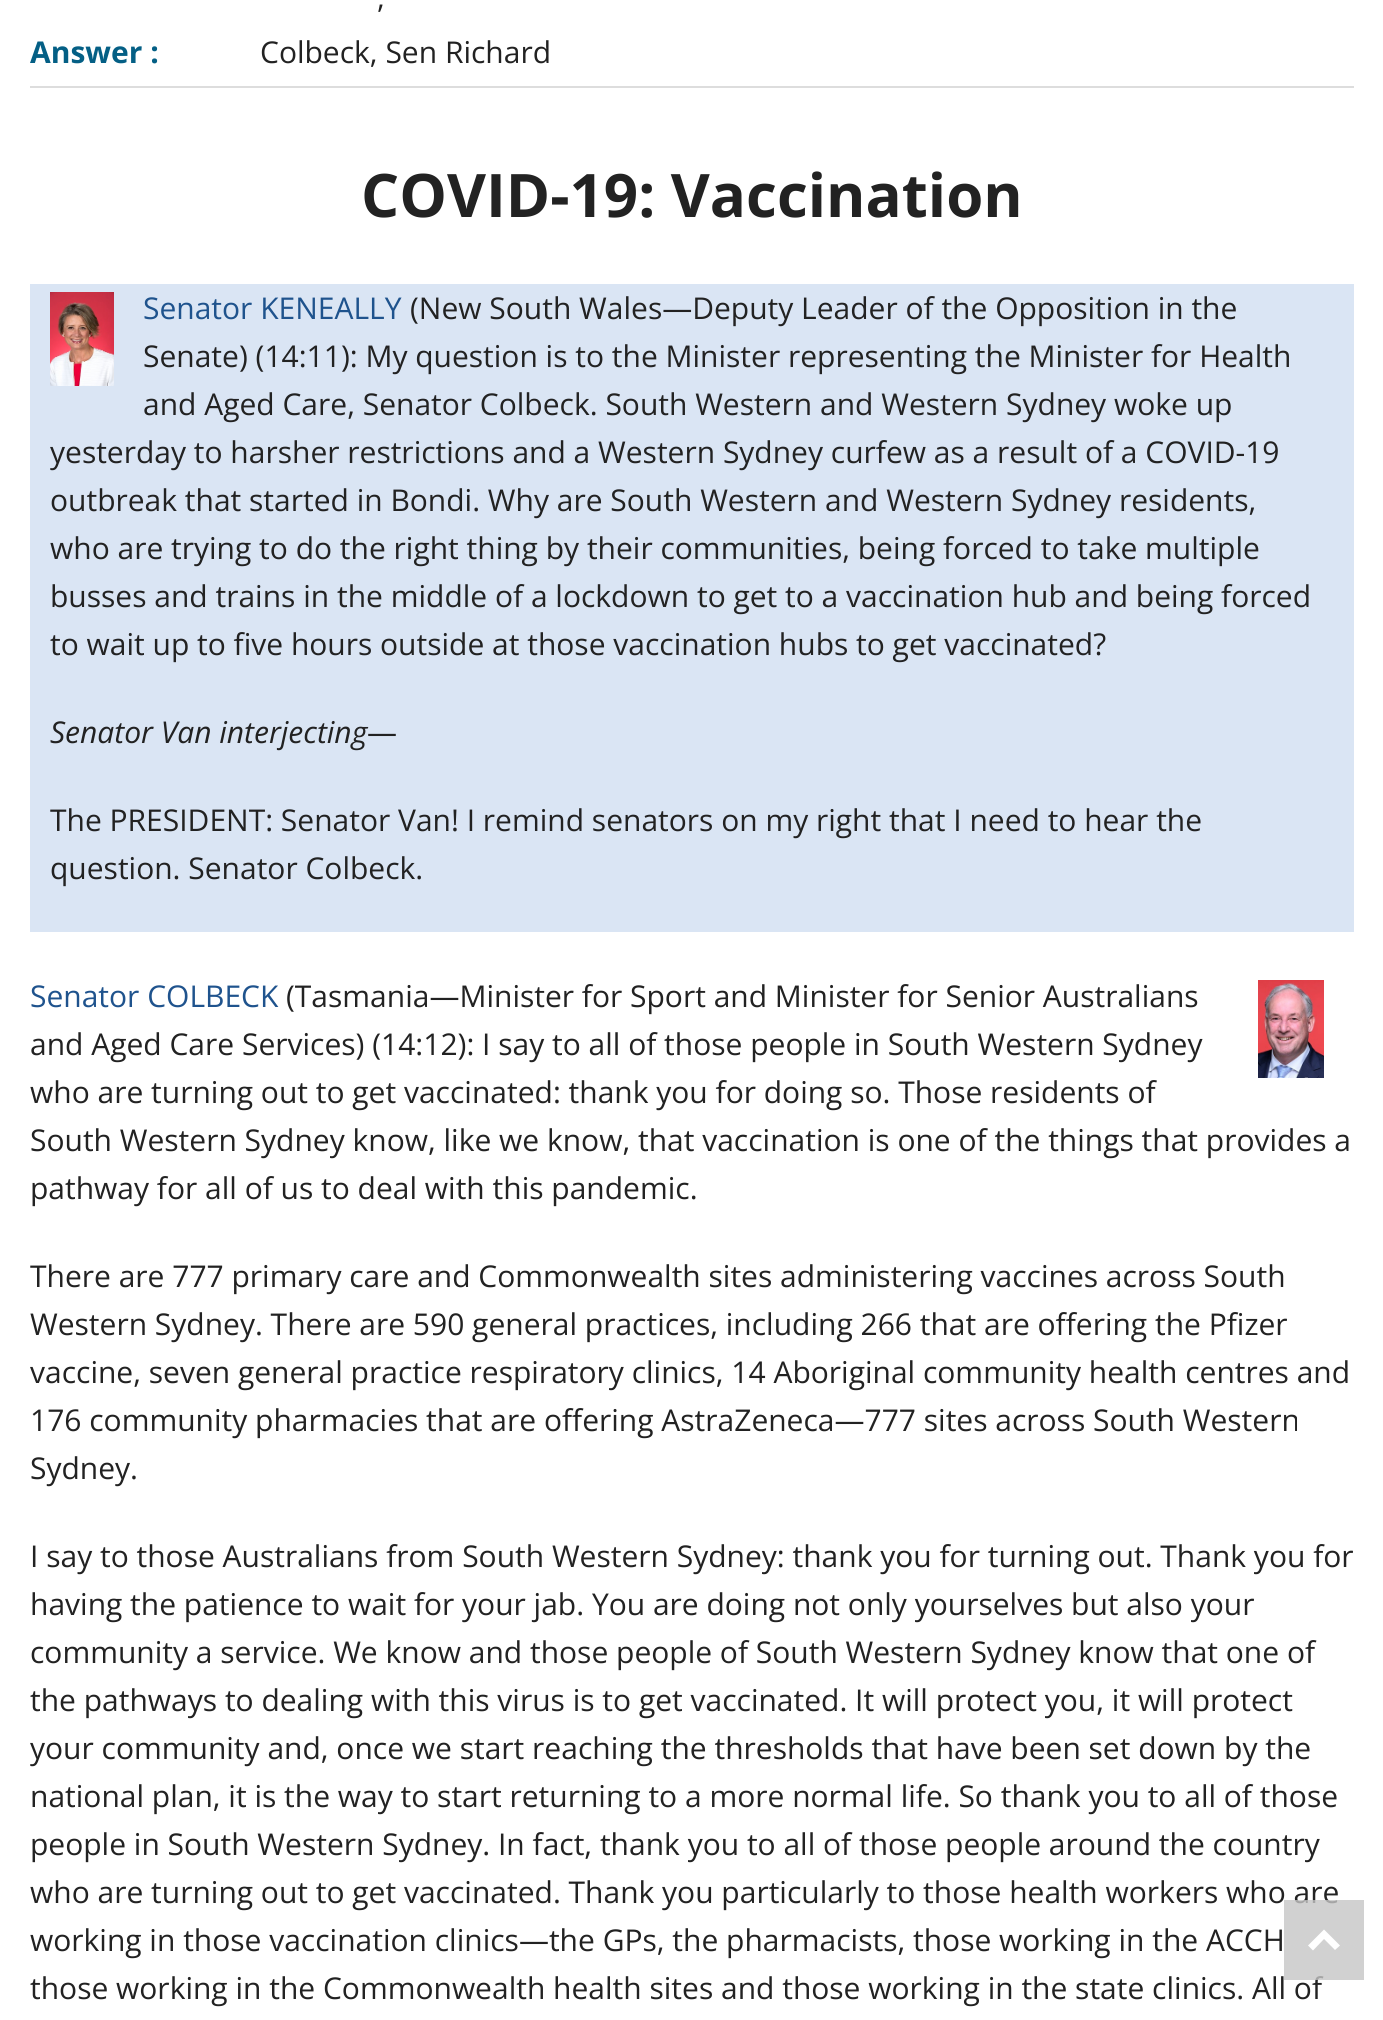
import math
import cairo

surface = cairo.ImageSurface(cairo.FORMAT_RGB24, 1383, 2020)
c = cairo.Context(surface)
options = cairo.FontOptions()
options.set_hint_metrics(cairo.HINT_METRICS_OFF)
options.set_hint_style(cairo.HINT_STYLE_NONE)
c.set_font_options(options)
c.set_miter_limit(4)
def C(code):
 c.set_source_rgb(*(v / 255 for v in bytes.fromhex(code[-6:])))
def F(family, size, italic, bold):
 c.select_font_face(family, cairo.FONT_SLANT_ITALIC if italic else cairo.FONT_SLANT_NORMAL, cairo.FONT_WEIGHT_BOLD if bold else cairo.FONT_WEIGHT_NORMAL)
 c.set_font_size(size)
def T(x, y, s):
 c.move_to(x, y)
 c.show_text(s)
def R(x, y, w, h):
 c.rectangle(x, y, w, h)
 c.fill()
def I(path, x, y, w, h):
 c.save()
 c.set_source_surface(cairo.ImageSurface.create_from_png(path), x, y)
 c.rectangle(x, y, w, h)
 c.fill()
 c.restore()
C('ffffff')
c.paint()
F('Open Sans',30,0,0)
C('222222')
T(377,8,',')
F('Open Sans',30,0,1)
C('045f85')
T(30,63,'Answer :')
F('Open Sans',30,0,0)
C('222222')
T(260,63,'Colbeck, Sen Richard')
C('dddddd')
R(30,86,1324,2)
F('Open Sans',60,0,1)
C('222222')
T(361,217,'COVID-19: Vaccination')
C('dae5f4')
R(30,284,1324,648)
I('1.png',50,292,64,94)
F('Open Sans',30,0,0)
C('1f538d')
T(143,319,'Senator KENEALLY')
C('222222')
T(410,319,'(New South Wales—Deputy Leader of the Opposition in the')
T(143,367,'Senate) (14:11): My question is to the Minister representing the Minister for Health')
T(143,415,'and Aged Care, Senator Colbeck. South Western and Western Sydney woke up')
T(50,463,'yesterday to harsher restrictions and a Western Sydney curfew as a result of a COVID-19')
T(50,511,'outbreak that started in Bondi. Why are South Western and Western Sydney residents,')
T(50,559,'who are trying to do the right thing by their communities, being forced to take multiple')
T(50,607,'busses and trains in the middle of a lockdown to get to a vaccination hub and being forced')
T(50,655,'to wait up to five hours outside at those vaccination hubs to get vaccinated?')
F('Open Sans',30,1,0)
T(50,743,'Senator Van interjecting')
F('Open Sans',30,0,0)
T(367,743,'—')
T(50,831,'The PRESIDENT: Senator Van! I remind senators on my right that I need to hear the')
T(50,879,'question. Senator Colbeck.')
C('1f538d')
T(30,1007,'Senator COLBECK')
I('2.png',1258,980,66,98)
C('222222')
T(286,1007,'(Tasmania—Minister for Sport and Minister for Senior Australians')
T(30,1055,'and Aged Care Services) (14:12): I say to all of those people in South Western Sydney')
T(30,1103,'who are turning out to get vaccinated: thank you for doing so. Those residents of')
T(30,1151,'South Western Sydney know, like we know, that vaccination is one of the things that provides a')
T(30,1199,'pathway for all of us to deal with this pandemic.')
T(30,1287,'There are 777 primary care and Commonwealth sites administering vaccines across South')
T(30,1335,'Western Sydney. There are 590 general practices, including 266 that are offering the Pfizer')
T(30,1383,'vaccine, seven general practice respiratory clinics, 14 Aboriginal community health centres and')
T(30,1431,'176 community pharmacies that are offering AstraZeneca—777 sites across South Western')
T(30,1479,'Sydney.')
T(30,1567,'I say to those Australians from South Western Sydney: thank you for turning out. Thank you for')
T(30,1615,'having the patience to wait for your jab. You are doing not only yourselves but also your')
T(30,1663,'community a service. We know and those people of South Western Sydney know that one of')
T(30,1711,'the pathways to dealing with this virus is to get vaccinated. It will protect you, it will protect')
T(30,1759,'your community and, once we start reaching the thresholds that have been set down by the')
T(30,1807,'national plan, it is the way to start returning to a more normal life. So thank you to all of those')
T(30,1855,'people in South Western Sydney. In fact, thank you to all of those people around the country')
T(30,1903,'who are turning out to get vaccinated. Thank you particularly to those health workers who are')
T(30,1951,'working in those vaccination clinics—the GPs, the pharmacists, those working in the ACCH')
T(30,1999,'those working in the Commonwealth health sites and those working in the state clinics. All of')
c.set_source_rgba(0.773,0.773,0.773,0.8)
R(1284,1900,80,80)
C('ffffff')
c.new_path()
c.move_to(1324,1929.5)
c.line_to(1340,1945.5)
c.line_to(1335,1950)
c.line_to(1324,1939)
c.line_to(1313,1950.5)
c.line_to(1308,1945.5)
c.close_path()
c.fill()
surface.write_to_png('o.png')
